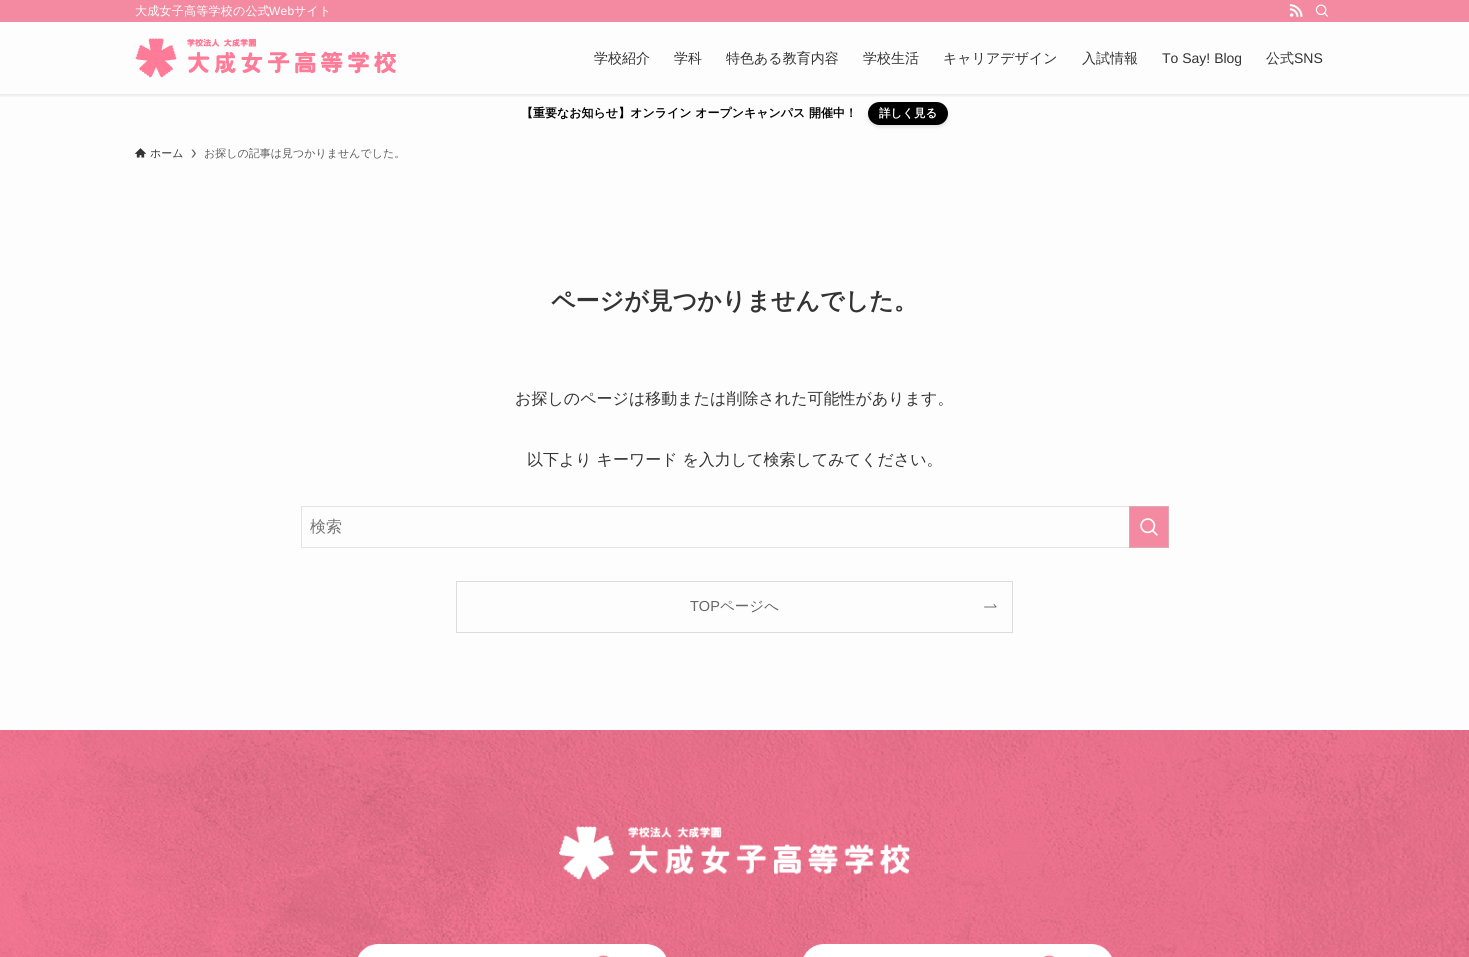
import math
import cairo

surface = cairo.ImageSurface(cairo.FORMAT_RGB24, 1469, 957)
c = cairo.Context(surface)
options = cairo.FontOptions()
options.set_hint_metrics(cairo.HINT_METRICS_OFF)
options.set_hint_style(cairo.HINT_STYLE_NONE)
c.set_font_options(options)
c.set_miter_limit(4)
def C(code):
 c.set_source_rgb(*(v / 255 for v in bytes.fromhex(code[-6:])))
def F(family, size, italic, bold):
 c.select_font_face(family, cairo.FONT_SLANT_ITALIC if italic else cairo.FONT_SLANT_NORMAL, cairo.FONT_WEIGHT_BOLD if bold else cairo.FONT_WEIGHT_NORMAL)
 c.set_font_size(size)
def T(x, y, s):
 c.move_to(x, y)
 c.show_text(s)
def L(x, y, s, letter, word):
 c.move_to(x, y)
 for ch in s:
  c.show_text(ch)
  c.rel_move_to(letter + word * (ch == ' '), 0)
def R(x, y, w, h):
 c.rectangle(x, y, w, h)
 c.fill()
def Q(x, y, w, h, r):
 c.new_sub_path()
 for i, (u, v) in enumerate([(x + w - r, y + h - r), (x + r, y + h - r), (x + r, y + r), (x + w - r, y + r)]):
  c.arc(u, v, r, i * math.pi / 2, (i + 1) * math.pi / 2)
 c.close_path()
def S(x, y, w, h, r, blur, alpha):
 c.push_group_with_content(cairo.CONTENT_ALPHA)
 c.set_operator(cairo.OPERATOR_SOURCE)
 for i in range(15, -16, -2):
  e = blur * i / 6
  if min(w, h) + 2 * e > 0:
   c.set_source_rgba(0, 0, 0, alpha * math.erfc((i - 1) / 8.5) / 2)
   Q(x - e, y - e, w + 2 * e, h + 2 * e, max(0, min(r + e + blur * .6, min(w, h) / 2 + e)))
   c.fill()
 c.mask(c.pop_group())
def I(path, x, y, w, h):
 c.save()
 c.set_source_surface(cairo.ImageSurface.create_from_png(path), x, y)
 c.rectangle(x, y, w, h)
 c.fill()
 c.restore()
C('fdfdfd')
c.paint()
c.save()
c.rectangle(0,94,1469,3)
c.clip()
C('000000')
S(0,1,1469,94,0,2,.12)
c.restore()
C('f38aa1')
R(0,0,1469,22)
F('WenQuanYi Zen Hei Medium',12,0,0)
C('ffffff')
L(135,15,'大成女子高等学校の公式',.25,0)
F('Liberation Sans',12,0,0)
L(269,15,'Web',.25,0)
F('WenQuanYi Zen Hei Medium',12,0,0)
L(294,15,'サイト',.25,0)
I('1.png',1289,4,14,13)
I('2.png',1315,4,14,13)
I('3.png',135,38,261,40)
F('WenQuanYi Zen Hei Medium',14,0,0)
C('333333')
T(594,63,'学校紹介')
T(674,63,'学科')
T(726,63,'特色ある教育内容')
T(863,63,'学校生活')
T(943,63,'キャリアデザイン')
T(1082,63,'入試情報')
F('Liberation Sans',14,0,0)
T(1162,63,'To Say! Blog')
F('WenQuanYi Zen Hei Medium',14,0,0)
T(1266,63,'公式')
F('Liberation Sans',14,0,0)
T(1294,63,'SNS')
F('WenQuanYi Zen Hei',12,0,1)
C('000000')
T(521,117,'【重要なお知らせ】オンライン オープンキャンパス 開催中！')
C('000000')
S(868,104,80,23,11.5,2,.12)
C('000000')
Q(868,102,80,23,11.5)
c.fill()
F('WenQuanYi Zen Hei',11.5,0,1)
C('ffffff')
T(879,117,'詳しく見る')
I('4.png',135,148,11,10)
F('WenQuanYi Zen Hei Medium',11,0,0)
C('333333')
T(150,157,'ホーム')
C('5b5b5b')
c.new_path()
c.move_to(193,149.5)
c.line_to(191.5,149.5)
c.line_to(194.5,153.5)
c.line_to(191.5,157.5)
c.line_to(193,157.5)
c.line_to(196,153.5)
c.close_path()
c.fill()
T(204,157,'お探しの記事は見つかりませんでした。')
F('WenQuanYi Zen Hei',24,0,1)
C('333333')
T(551,309,'ページが見つかりませんでした。')
F('WenQuanYi Zen Hei Medium',16,0,0)
T(515,404,'お探しのページは移動または削除された可能性があります。')
T(527,465,'以下より キーワード を入力して検索してみてください。')
c.rectangle(301.5,506.5,867,41)
C('e3e3e3')
c.set_line_width(1)
c.stroke()
C('757575')
T(310,532,'検索')
C('f38aa1')
c.rectangle(1129.5,506.5,39,41)
c.fill_preserve()
C('dda9b4')
c.stroke()
I('5.png',1140,518,18,18)
c.rectangle(456.5,581.5,556,51)
C('dcdcdc')
c.stroke()
F('Liberation Sans',14.5,0,0)
C('666666')
T(690,611,'TOP')
F('WenQuanYi Zen Hei Medium',14.5,0,0)
T(720,611,'ページへ')
I('6.png',984,604,13,4)
I('7.png',0,730,1469,227)
I('8.png',559,826,351,54)
I('9.png',358,944,309,13)
I('10.png',803,944,309,13)
surface.write_to_png('o.png')
